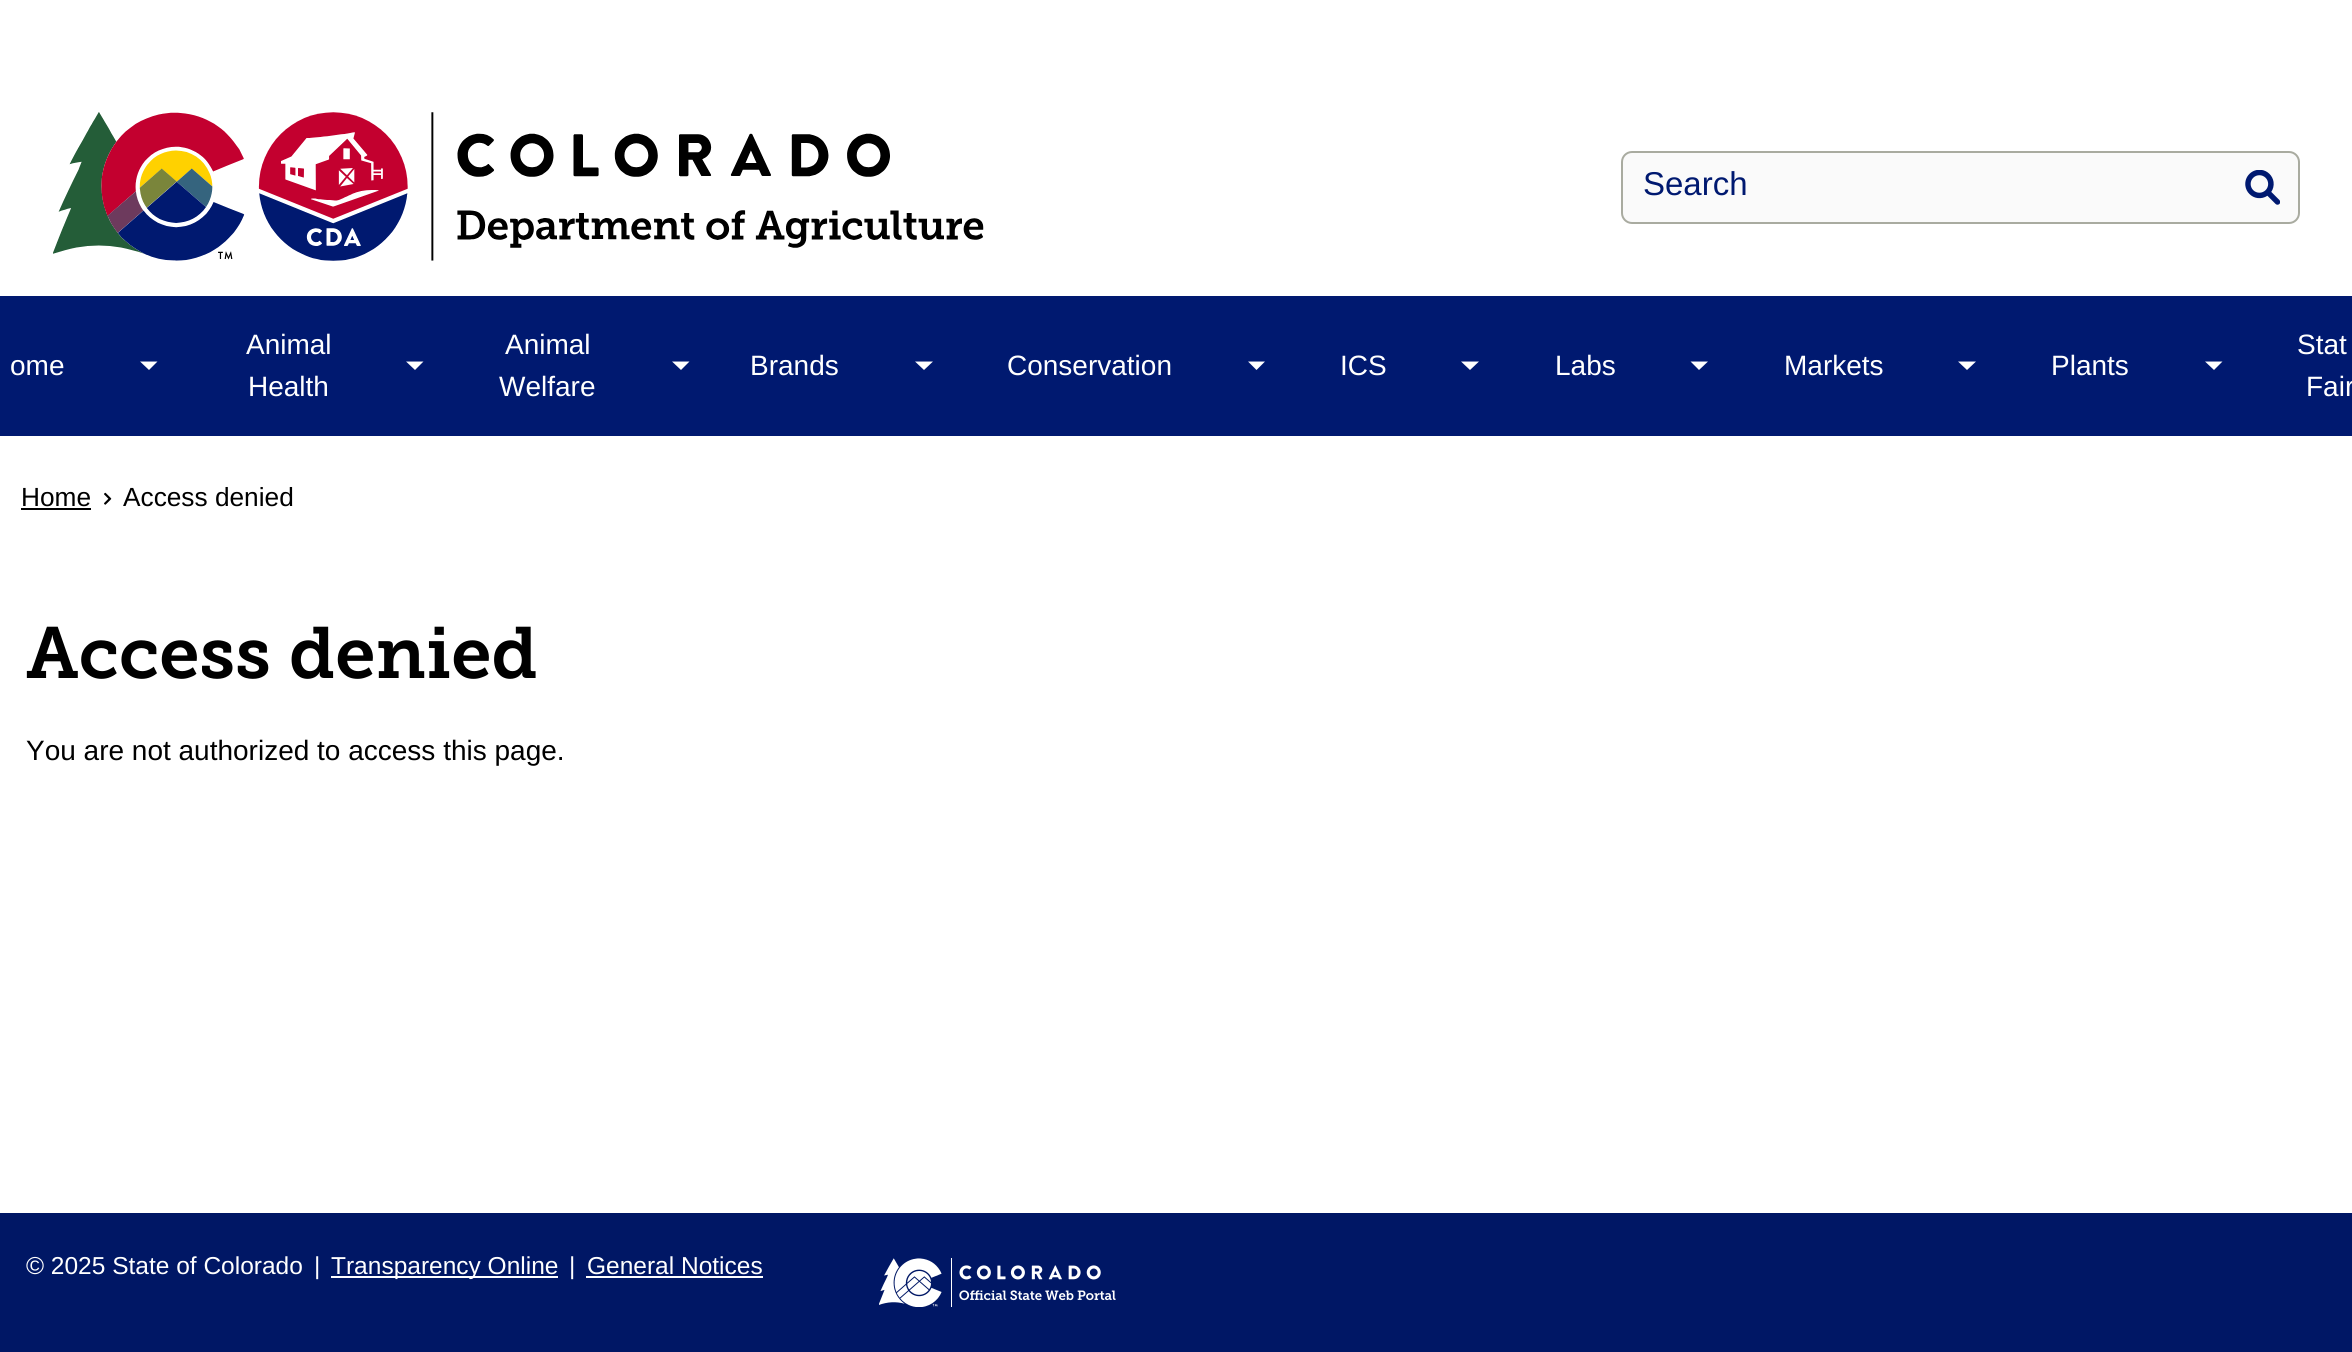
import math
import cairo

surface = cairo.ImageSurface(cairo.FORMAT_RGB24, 2352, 1352)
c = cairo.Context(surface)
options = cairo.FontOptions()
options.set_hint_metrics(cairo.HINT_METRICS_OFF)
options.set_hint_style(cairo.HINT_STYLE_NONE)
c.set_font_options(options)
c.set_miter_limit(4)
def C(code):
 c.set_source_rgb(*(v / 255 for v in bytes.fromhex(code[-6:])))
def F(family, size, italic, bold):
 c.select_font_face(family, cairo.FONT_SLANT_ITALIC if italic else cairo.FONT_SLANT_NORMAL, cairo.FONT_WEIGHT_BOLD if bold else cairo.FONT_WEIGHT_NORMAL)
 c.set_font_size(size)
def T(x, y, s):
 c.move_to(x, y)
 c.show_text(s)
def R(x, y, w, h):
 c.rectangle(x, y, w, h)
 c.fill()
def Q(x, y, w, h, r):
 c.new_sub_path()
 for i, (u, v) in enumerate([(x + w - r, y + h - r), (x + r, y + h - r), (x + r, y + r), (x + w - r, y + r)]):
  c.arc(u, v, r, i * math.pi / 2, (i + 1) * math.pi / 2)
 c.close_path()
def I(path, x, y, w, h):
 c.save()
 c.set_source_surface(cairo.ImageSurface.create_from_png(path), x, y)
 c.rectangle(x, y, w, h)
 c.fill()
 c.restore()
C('ffffff')
c.paint()
I('1.png',53,112,931,149)
C('fafafa')
Q(1622,152,677,71,10)
c.fill_preserve()
C('a9aba0')
c.stroke()
F('Liberation Sans',33,0,0)
C('001970')
T(1643,195,'Search')
I('2.png',2245,170,35,35)
R(0,296,2352,140)
F('Liberation Sans',28,0,0)
C('ffffff')
T(10,375,'ome')
c.new_path()
c.move_to(140,361.5)
c.line_to(157.5,361.5)
c.line_to(149,370)
c.close_path()
c.fill()
T(246,354,'Animal')
T(248,396,'Health')
c.new_path()
c.move_to(406,361.5)
c.line_to(423.5,361.5)
c.line_to(415,370)
c.close_path()
c.fill()
T(505,354,'Animal')
T(499,396,'Welfare')
c.new_path()
c.move_to(672,361.5)
c.line_to(689.5,361.5)
c.line_to(681,370)
c.close_path()
c.fill()
T(750,375,'Brands')
c.new_path()
c.move_to(915,361.5)
c.line_to(933,361.5)
c.line_to(924,370)
c.close_path()
c.fill()
T(1007,375,'Conservation')
c.new_path()
c.move_to(1248,361.5)
c.line_to(1265,361.5)
c.line_to(1256.5,370)
c.close_path()
c.fill()
T(1340,375,'ICS')
c.new_path()
c.move_to(1461,361.5)
c.line_to(1479,361.5)
c.line_to(1470,370)
c.close_path()
c.fill()
T(1555,375,'Labs')
c.new_path()
c.move_to(1690.5,361.5)
c.line_to(1708,361.5)
c.line_to(1699,370)
c.close_path()
c.fill()
T(1784,375,'Markets')
c.new_path()
c.move_to(1958,361.5)
c.line_to(1976,361.5)
c.line_to(1967,370)
c.close_path()
c.fill()
T(2051,375,'Plants')
c.new_path()
c.move_to(2205,361.5)
c.line_to(2222.5,361.5)
c.line_to(2214,370)
c.close_path()
c.fill()
T(2297,354,'Stat')
T(2306,396,'Fair')
F('Liberation Sans',26.25,0,0)
C('000000')
T(21,506,'Home')
R(21,508,70,2)
I('3.png',104,492,8,13)
T(123,506,'Access denied')
F('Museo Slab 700 SemiBold',72.25,0,0)
T(26,678,'Access denied')
F('Liberation Sans',28,0,0)
T(26,760,'You are not authorized to access this page.')
C('001765')
R(0,1213,2352,139)
F('Liberation Sans',24.5,0,0)
C('ffffff')
T(26,1274,'© 2025 State of Colorado')
T(314,1274,'|')
R(331,1276,227,2)
T(331,1274,'Transparency Online')
T(569,1274,'|')
T(587,1274,'General Notices')
R(586,1276,177,2)
I('4.png',879,1258,237,49)
surface.write_to_png('o.png')
